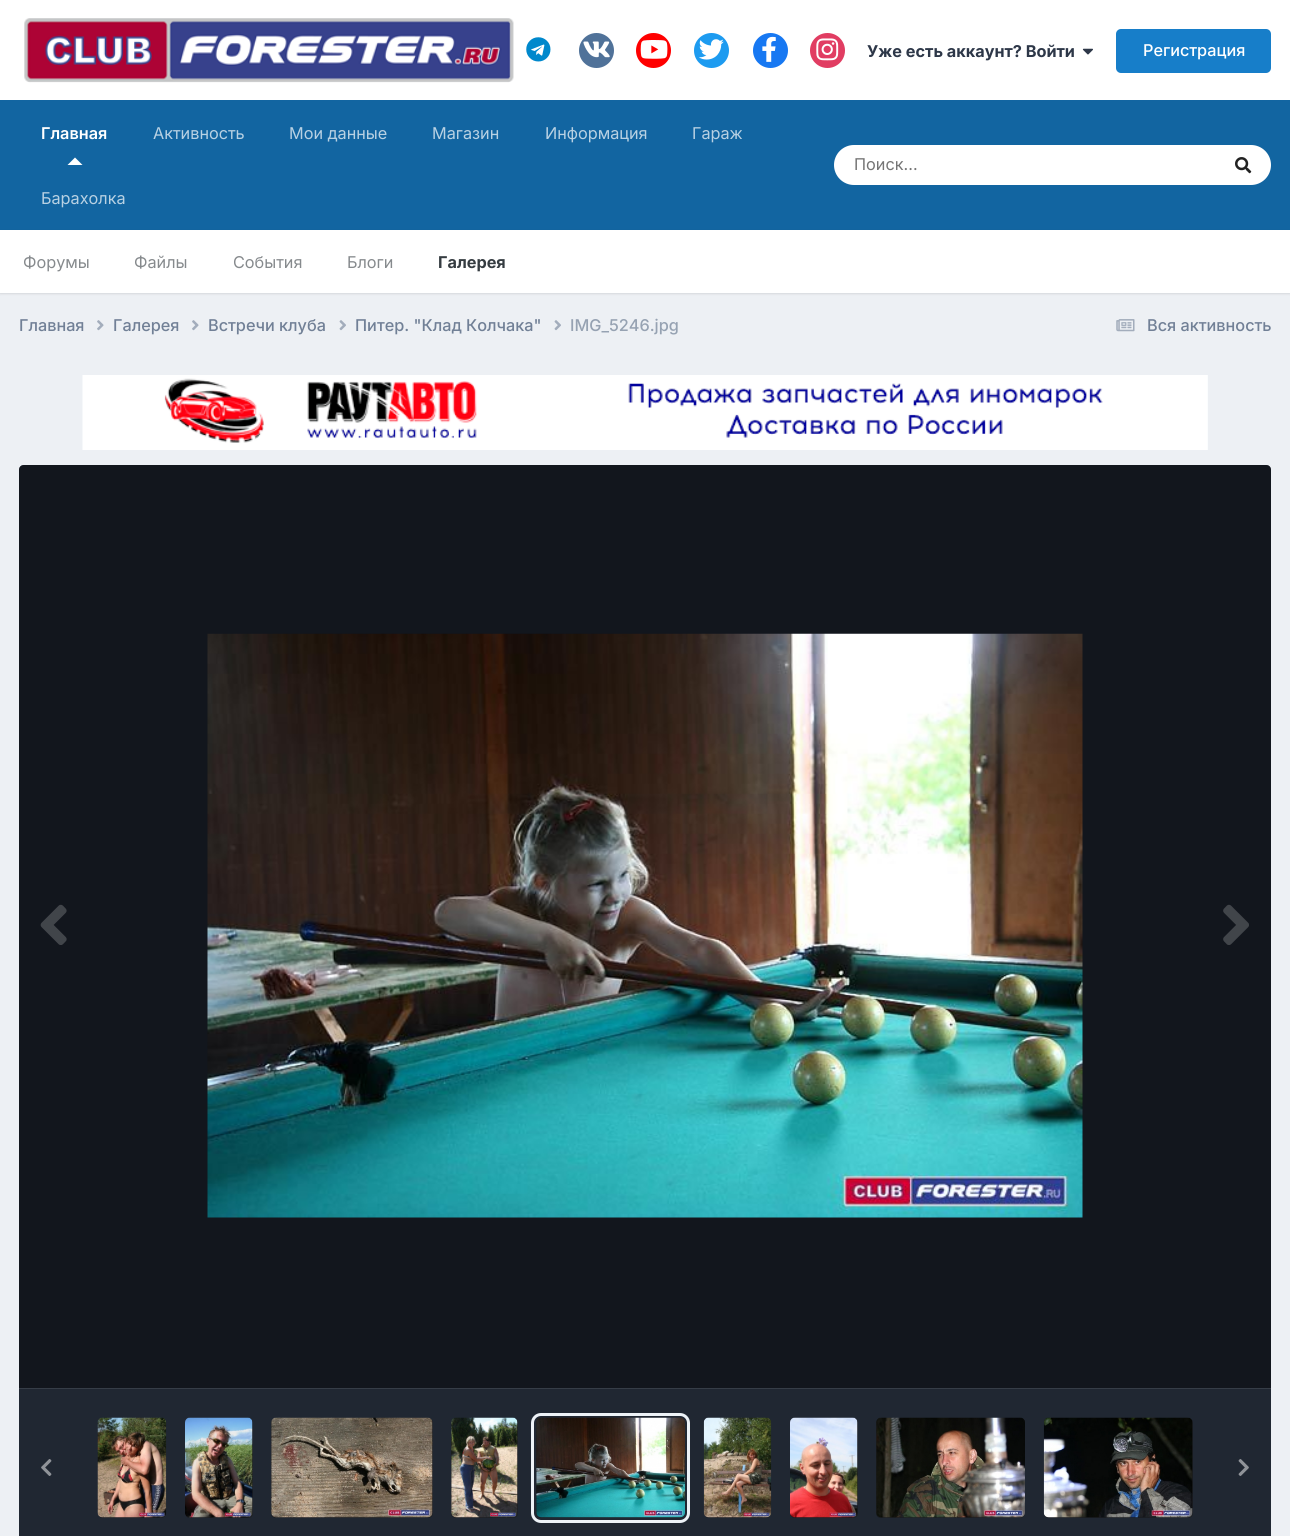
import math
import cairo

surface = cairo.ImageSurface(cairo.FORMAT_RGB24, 1290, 1536)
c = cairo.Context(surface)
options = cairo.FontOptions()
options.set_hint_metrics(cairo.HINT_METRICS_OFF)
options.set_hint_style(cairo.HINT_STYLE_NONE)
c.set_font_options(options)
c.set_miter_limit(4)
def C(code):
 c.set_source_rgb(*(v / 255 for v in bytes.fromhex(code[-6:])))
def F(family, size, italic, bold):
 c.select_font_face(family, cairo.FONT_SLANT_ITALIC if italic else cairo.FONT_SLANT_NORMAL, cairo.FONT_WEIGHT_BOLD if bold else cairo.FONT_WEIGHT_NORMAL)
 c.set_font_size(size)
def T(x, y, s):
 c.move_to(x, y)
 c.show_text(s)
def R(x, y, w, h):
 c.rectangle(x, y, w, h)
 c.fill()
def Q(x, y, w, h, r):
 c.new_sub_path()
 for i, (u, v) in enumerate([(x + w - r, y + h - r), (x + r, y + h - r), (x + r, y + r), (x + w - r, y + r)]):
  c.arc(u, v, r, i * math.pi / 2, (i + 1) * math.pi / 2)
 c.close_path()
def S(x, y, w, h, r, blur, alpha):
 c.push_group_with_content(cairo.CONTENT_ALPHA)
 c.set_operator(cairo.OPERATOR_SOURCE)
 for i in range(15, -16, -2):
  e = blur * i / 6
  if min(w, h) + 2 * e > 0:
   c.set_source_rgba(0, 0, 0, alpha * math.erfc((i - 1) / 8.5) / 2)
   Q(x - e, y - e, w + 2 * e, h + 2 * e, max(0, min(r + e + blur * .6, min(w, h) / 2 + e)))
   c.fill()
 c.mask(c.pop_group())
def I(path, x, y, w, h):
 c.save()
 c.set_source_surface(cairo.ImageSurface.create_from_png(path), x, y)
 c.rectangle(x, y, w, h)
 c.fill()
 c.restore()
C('edf0f4')
c.paint()
C('ffffff')
R(0,0,1290,100)
I('1.png',24,18,490,65)
I('2.png',526,37,25,25)
C('507299')
c.arc(596.5,50.5,17.5,0,2 * math.pi)
c.fill()
I('3.png',583,41,27,17)
C('ff0000')
c.arc(653.5,50.5,17.5,0,2 * math.pi)
c.fill()
I('4.png',640,40,28,19)
C('1d9bf0')
c.arc(711.5,50.5,17.5,0,2 * math.pi)
c.fill()
I('5.png',699,39,25,21)
C('1778f2')
c.arc(770.5,50.5,17.5,0,2 * math.pi)
c.fill()
I('6.png',762,36,14,26)
C('e13d62')
c.arc(827.5,50.5,17.5,0,2 * math.pi)
c.fill()
I('7.png',816,38,23,23)
F('Inter',16.25,0,1)
C('2d3748')
T(867,57,'Уже есть аккаунт? Войти')
I('8.png',1082,48,11,7)
C('177ec9')
Q(1116,29,155,44,5)
c.fill()
F('Inter Medium',16.25,0,0)
C('ffffff')
T(1143,56,'Регистрация')
C('1265a1')
R(0,100,1290,130)
F('Inter SemiBold',16.25,0,0)
C('ffffff')
T(41,139,'Главная')
c.new_path()
c.move_to(82.5,165)
c.line_to(67.5,165)
c.line_to(75,157.5)
c.close_path()
c.fill()
C('000000')
S(0,231,1290,63,0,1,.1)
C('ffffff')
R(0,230,1290,63)
F('Inter',16.25,0,0)
C('868a8d')
T(23,268,'Форумы')
T(134,268,'Файлы')
T(233,268,'События')
T(347,268,'Блоги')
F('Inter',16.25,0,1)
C('353c41')
T(438,268,'Галерея')
F('Inter',16.25,0,0)
C('b8d1e3')
T(153,139,'Активность')
T(289,139,'Мои данные')
T(432,139,'Магазин')
T(545,139,'Информация')
T(692,139,'Гараж')
T(41,204,'Барахолка')
C('ffffff')
Q(834,145,437,40,20)
c.fill()
C('757575')
T(854,170,'Поиск...')
I('9.png',1235,157,17,17)
F('Inter Medium',16.25,0,0)
C('718096')
T(19,331,'Главная')
I('10.png',97,320,7,11)
T(113,331,'Галерея')
I('10.png',192,320,7,11)
T(208,331,'Встречи клуба')
I('11.png',339,320,7,11)
T(355,331,'Питер. "Клад Колчака"')
I('11.png',554,320,7,11)
C('96a2b2')
T(570,331,'IMG_5246.jpg')
I('12.png',1116,319,19,13)
C('718096')
T(1147,331,'Вся активность')
C('f7fafc')
R(1207,375,1,75)
I('13.png',82,375,1126,75)
C('2d3748')
c.new_path()
c.move_to(24,465)
c.line_to(1266,465)
c.curve_to(1269,465,1271,467,1271,470)
c.line_to(1271,1388)
c.line_to(19,1388)
c.line_to(19,470)
c.curve_to(19,467,21,465,24,465)
c.close_path()
c.fill()
c.set_source_rgba(0,0,0,0.6)
c.new_path()
c.move_to(24,465)
c.line_to(1266,465)
c.curve_to(1269,465,1271,467,1271,470)
c.line_to(1271,1388)
c.line_to(19,1388)
c.line_to(19,470)
c.curve_to(19,467,21,465,24,465)
c.close_path()
c.fill()
I('14.png',207,633,876,585)
I('15.png',40,904,27,41)
I('16.png',1223,904,26,41)
C('202732')
R(19,1389,1252,147)
C('363d47')
R(19,1388,1252,1)
C('141414')
Q(98,1418,68,100,5)
c.fill()
c.set_source_rgba(0.176,0.216,0.282,0.3)
Q(98,1418,68,100,5)
c.fill()
I('17.png',97,1417,70,101)
C('141414')
Q(185,1418,68,100,5)
c.fill()
c.set_source_rgba(0.176,0.216,0.282,0.3)
Q(185,1418,68,100,5)
c.fill()
I('18.png',185,1417,68,101)
C('141414')
Q(271,1418,162,100,5)
c.fill()
c.set_source_rgba(0.176,0.216,0.282,0.3)
Q(271,1418,162,100,5)
c.fill()
I('19.png',271,1417,162,101)
C('141414')
Q(451,1418,67,100,5)
c.fill()
c.set_source_rgba(0.176,0.216,0.282,0.3)
Q(451,1418,67,100,5)
c.fill()
I('20.png',451,1417,67,101)
C('141414')
Q(536,1418,149,100,5)
c.fill()
c.set_source_rgba(0.176,0.216,0.282,0.3)
Q(536,1418,149,100,5)
c.fill()
Q(532.5,1414.5,156,107,8.5)
C('edf2f7')
c.set_line_width(3)
c.stroke()
I('21.png',536,1417,149,101)
C('141414')
Q(704,1418,67,100,5)
c.fill()
c.set_source_rgba(0.176,0.216,0.282,0.3)
Q(704,1418,67,100,5)
c.fill()
I('22.png',703,1417,69,101)
C('141414')
Q(790,1418,68,100,5)
c.fill()
c.set_source_rgba(0.176,0.216,0.282,0.3)
Q(790,1418,68,100,5)
c.fill()
I('23.png',790,1417,68,101)
C('141414')
Q(876,1418,149,100,5)
c.fill()
c.set_source_rgba(0.176,0.216,0.282,0.3)
Q(876,1418,149,100,5)
c.fill()
I('24.png',876,1417,149,101)
C('141414')
Q(1044,1418,149,100,5)
c.fill()
c.set_source_rgba(0.176,0.216,0.282,0.3)
Q(1044,1418,149,100,5)
c.fill()
I('25.png',1043,1417,150,101)
I('26.png',41,1459,11,17)
I('27.png',1238,1459,11,17)
surface.write_to_png('o.png')
